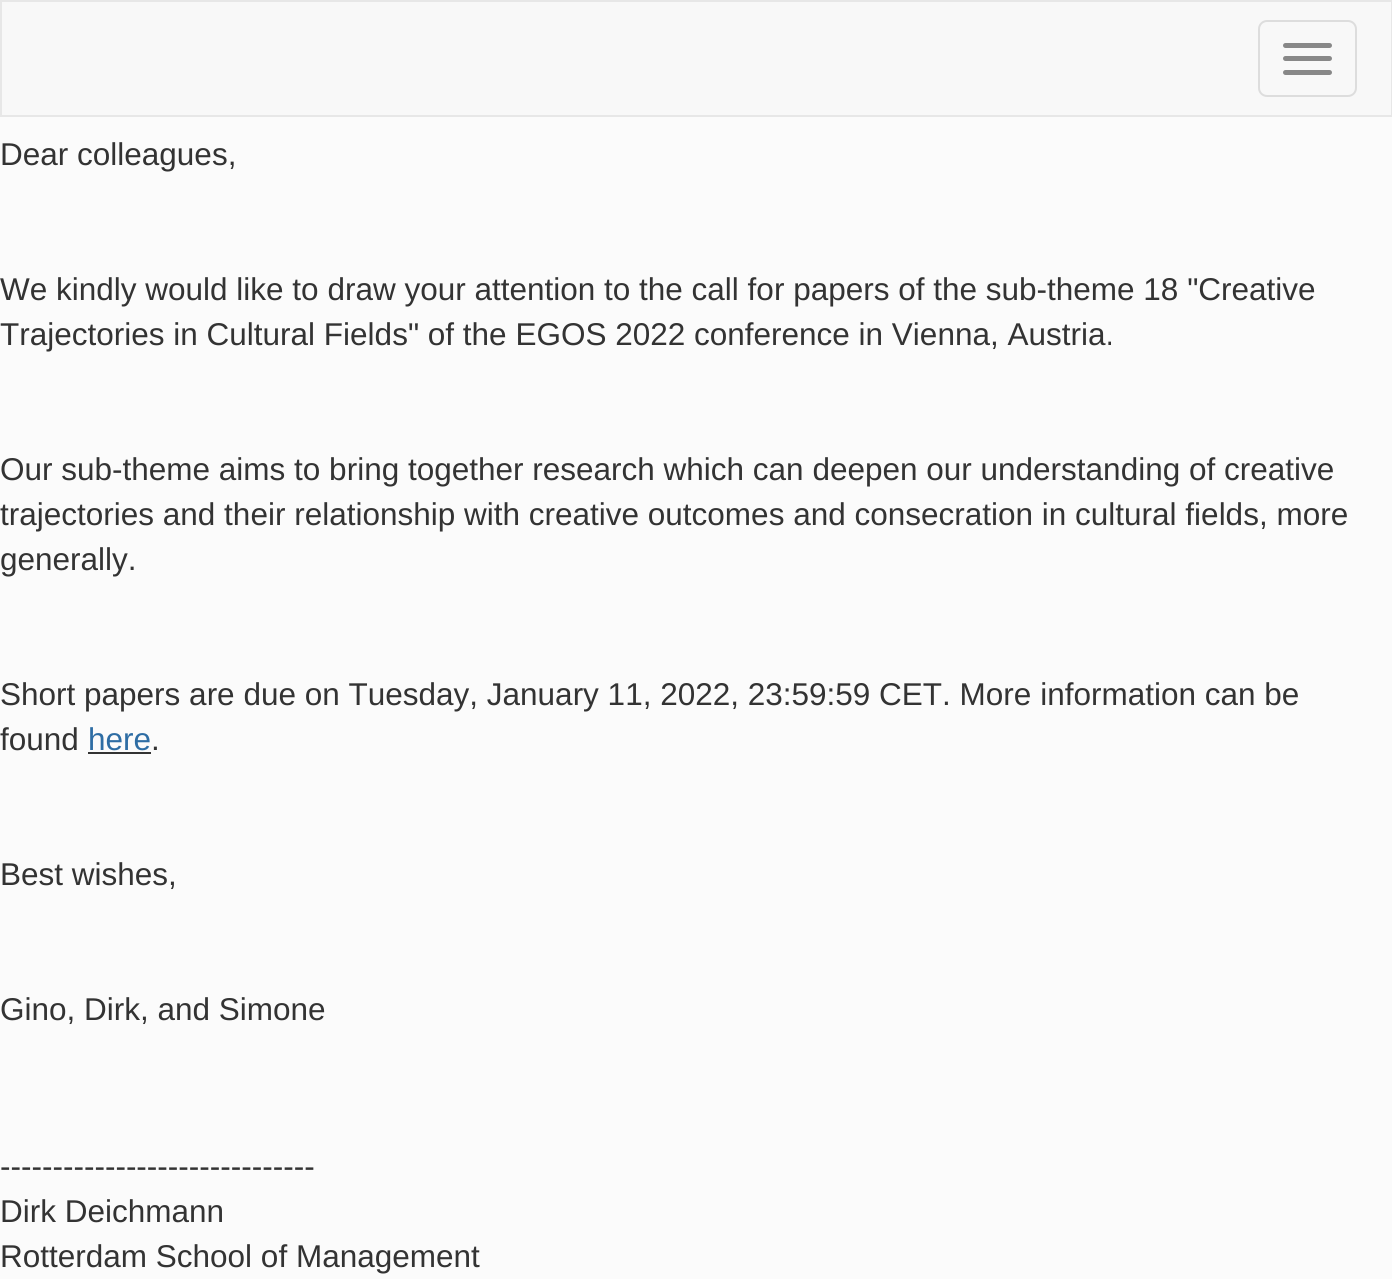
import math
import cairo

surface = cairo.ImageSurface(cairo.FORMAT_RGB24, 1392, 1279)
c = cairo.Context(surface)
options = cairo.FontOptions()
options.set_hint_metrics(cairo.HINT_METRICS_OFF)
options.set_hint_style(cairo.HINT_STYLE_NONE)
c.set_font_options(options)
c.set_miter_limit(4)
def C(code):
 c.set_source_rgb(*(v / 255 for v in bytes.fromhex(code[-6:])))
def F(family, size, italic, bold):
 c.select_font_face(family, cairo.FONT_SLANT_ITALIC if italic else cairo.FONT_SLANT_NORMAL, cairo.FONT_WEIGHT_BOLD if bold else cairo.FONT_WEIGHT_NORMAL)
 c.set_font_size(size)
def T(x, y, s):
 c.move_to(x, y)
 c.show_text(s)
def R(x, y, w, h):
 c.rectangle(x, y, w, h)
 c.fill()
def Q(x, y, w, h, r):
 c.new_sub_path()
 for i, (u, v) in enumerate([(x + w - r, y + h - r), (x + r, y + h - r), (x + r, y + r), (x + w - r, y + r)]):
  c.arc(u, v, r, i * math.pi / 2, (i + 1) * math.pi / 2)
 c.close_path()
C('fbfbfb')
c.paint()
C('f8f8f8')
c.rectangle(1,1,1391,115)
c.fill_preserve()
C('e7e7e7')
c.stroke()
Q(1259,21,97,75,8)
C('dddddd')
c.stroke()
C('888888')
Q(1283,43,49,5,2.5)
c.fill()
Q(1283,56,49,5,2.5)
c.fill()
Q(1283,70,49,5,2.5)
c.fill()
F('Liberation Sans',31.5,0,0)
C('333333')
T(0,165,'Dear colleagues,')
T(0,300,'We kindly would like to draw your attention to the call for papers of the sub-theme 18 "Creative')
T(0,345,'Trajectories in Cultural Fields" of the EGOS 2022 conference in Vienna, Austria.')
T(0,480,'Our sub-theme aims to bring together research which can deepen our understanding of creative')
T(0,525,'trajectories and their relationship with creative outcomes and consecration in cultural fields, more')
T(0,570,'generally.')
T(0,705,'Short papers are due on Tuesday, January 11, 2022, 23:59:59 CET. More information can be')
T(0,750,'found')
C('2e6da4')
T(88,750,'here')
C('333333')
R(88,752,63,2)
T(151,750,'.')
T(0,885,'Best wishes,')
T(0,1020,'Gino, Dirk, and Simone')
T(0,1177,'------------------------------')
T(0,1222,'Dirk Deichmann')
T(0,1267,'Rotterdam School of Management')
surface.write_to_png('o.png')
